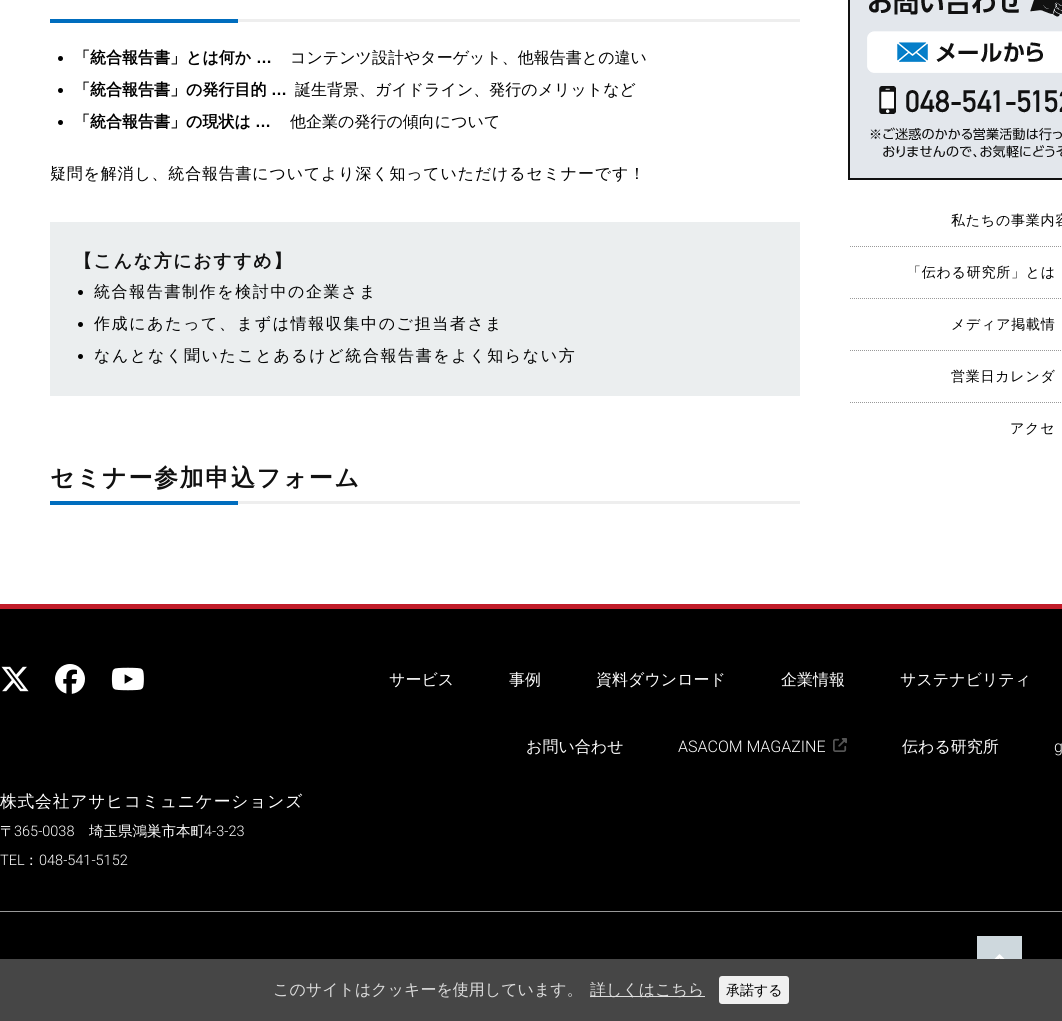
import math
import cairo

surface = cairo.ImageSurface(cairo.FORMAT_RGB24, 1062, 1021)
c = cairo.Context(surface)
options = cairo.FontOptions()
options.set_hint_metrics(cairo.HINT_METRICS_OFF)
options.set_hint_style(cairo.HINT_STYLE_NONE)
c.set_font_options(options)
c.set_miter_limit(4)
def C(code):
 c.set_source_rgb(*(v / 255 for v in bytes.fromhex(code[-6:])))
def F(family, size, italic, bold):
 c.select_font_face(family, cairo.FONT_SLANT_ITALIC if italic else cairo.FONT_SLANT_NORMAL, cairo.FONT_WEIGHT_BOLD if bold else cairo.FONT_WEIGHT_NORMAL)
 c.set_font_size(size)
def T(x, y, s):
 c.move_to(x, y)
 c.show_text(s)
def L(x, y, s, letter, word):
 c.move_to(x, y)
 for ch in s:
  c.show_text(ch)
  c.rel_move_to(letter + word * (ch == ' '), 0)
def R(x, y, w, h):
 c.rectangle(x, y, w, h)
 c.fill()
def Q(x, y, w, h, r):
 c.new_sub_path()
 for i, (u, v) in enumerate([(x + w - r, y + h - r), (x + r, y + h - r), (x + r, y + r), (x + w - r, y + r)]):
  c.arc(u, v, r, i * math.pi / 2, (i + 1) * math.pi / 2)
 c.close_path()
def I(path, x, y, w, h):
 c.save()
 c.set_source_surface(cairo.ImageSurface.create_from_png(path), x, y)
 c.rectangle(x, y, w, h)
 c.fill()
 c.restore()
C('ffffff')
c.paint()
C('eeeeee')
R(238,19,562,3)
C('006dbe')
R(50,19,188,4)
C('000000')
c.arc(60.5,58.5,2.5,0,2 * math.pi)
c.fill()
F('WenQuanYi Zen Hei',16,0,1)
T(74,63,'「統合報告書」とは何か')
F('Liberation Sans',16,0,1)
T(256,63,'…')
F('WenQuanYi Zen Hei Medium',16,0,0)
T(290,63,'コンテンツ設計やターゲット、他報告書との違い')
c.new_path()
c.arc(60.5,90.5,2.5,0,2 * math.pi)
c.fill()
F('WenQuanYi Zen Hei',16,0,1)
T(74,95,'「統合報告書」の発行目的')
F('Liberation Sans',16,0,1)
T(271,95,'…')
F('WenQuanYi Zen Hei Medium',16,0,0)
T(295,95,'誕生背景、ガイドライン、発行のメリットなど')
c.new_path()
c.arc(60.5,122.5,2.5,0,2 * math.pi)
c.fill()
F('WenQuanYi Zen Hei',16,0,1)
T(74,127,'「統合報告書」の現状は')
F('Liberation Sans',16,0,1)
T(255,127,'…')
F('WenQuanYi Zen Hei Medium',16,0,0)
T(290,127,'他企業の発行の傾向について')
L(50,179,'疑問を解消し、統合報告書についてより深く知っていただけるセミナーです！',.8,0)
C('ebeeef')
R(50,222,750,174)
F('WenQuanYi Zen Hei',18,0,1)
C('111111')
L(74,267,'【こんな方におすすめ】',1.6,0)
C('000000')
c.new_path()
c.arc(80.5,292.5,2.5,0,2 * math.pi)
c.fill()
F('WenQuanYi Zen Hei Medium',16,0,0)
L(94,297,'統合報告書制作を検討中の企業さま',1.6,0)
c.new_path()
c.arc(80.5,324.5,2.5,0,2 * math.pi)
c.fill()
L(94,329,'作成にあたって、まずは情報収集中のご担当者さま',1.6,0)
c.new_path()
c.arc(80.5,356.5,2.5,0,2 * math.pi)
c.fill()
L(94,361,'なんとなく聞いたことあるけど統合報告書をよく知らない方',1.6,0)
C('eeeeee')
R(238,501,562,3)
F('WenQuanYi Zen Hei',24,0,1)
C('111111')
L(50,486,'セミナー参加申込フォーム',1.6,0)
C('006dbe')
R(50,501,188,4)
c.rectangle(849,-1,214,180)
C('111111')
c.stroke()
I('1.png',850,0,212,178)
F('WenQuanYi Zen Hei Medium',14,0,0)
C('000000')
L(951,225,'私たちの事業内容',.75,0)
c.new_path()
c.move_to(850,246.5)
c.line_to(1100,246.5)
C('999999')
c.set_line_width(1)
c.set_dash([1,1])
c.stroke()
C('000000')
L(907,277,'「伝わる研究所」とは',.75,0)
c.new_path()
c.move_to(850,298.5)
c.line_to(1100,298.5)
C('999999')
c.stroke()
C('000000')
L(951,329,'メディア掲載情',.75,0)
c.new_path()
c.move_to(850,350.5)
c.line_to(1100,350.5)
C('999999')
c.stroke()
C('000000')
L(951,381,'営業日カレンダ',.75,0)
c.new_path()
c.move_to(850,402.5)
c.line_to(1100,402.5)
C('999999')
c.stroke()
C('000000')
L(1010,433,'アクセ',.75,0)
R(0,609,1062,350)
C('c11c29')
R(0,604,1062,5)
I('2.png',1,666,28,26)
I('3.png',55,664,30,30)
I('4.png',111,667,33,24)
F('WenQuanYi Zen Hei Medium',16,0,0)
C('ffffff')
T(389,685,'サービス')
T(509,685,'事例')
T(596,685,'資料ダウンロード')
T(781,685,'企業情報')
T(900,685,'サステナビリティ')
T(526,752,'お問い合わせ')
F('Roboto Light',16,0,0)
T(678,752,'ASACOM MAGAZINE')
I('5.png',833,738,14,14)
F('WenQuanYi Zen Hei Medium',16,0,0)
T(902,752,'伝わる研究所')
F('Roboto Light',16,0,0)
T(1054,752,'g')
F('WenQuanYi Zen Hei Medium',16.75,0,0)
L(0,807,'株式会社アサヒコミュニケーションズ',.8,0)
F('WenQuanYi Zen Hei Medium',14.5,0,0)
T(0,836,'〒')
F('Roboto Light',14.5,0,0)
T(14,836,'365-0038')
F('WenQuanYi Zen Hei Medium',14.5,0,0)
T(89,836,'埼玉県鴻巣市本町')
F('Roboto Light',14.5,0,0)
T(204,836,'4-3-23')
T(0,865,'TEL')
F('WenQuanYi Zen Hei Medium',14.5,0,0)
T(24,865,'：')
F('Roboto Light',14.5,0,0)
T(39,865,'048-541-5152')
C('999999')
R(0,911,1062,1)
C('ced8dd')
R(977,936,45,23)
I('6.png',994,954,11,5)
C('464646')
R(0,959,1062,62)
F('WenQuanYi Zen Hei Medium',16,0,0)
C('dddddd')
T(273,995,'このサイトはクッキーを使用しています。')
R(590,996,115,1)
T(590,995,'詳しくはこちら')
C('f0f0f0')
Q(719,976,70,28,3)
c.fill()
F('WenQuanYi Zen Hei Medium',14,0,0)
C('000000')
T(726,995,'承諾する')
surface.write_to_png('o.png')
